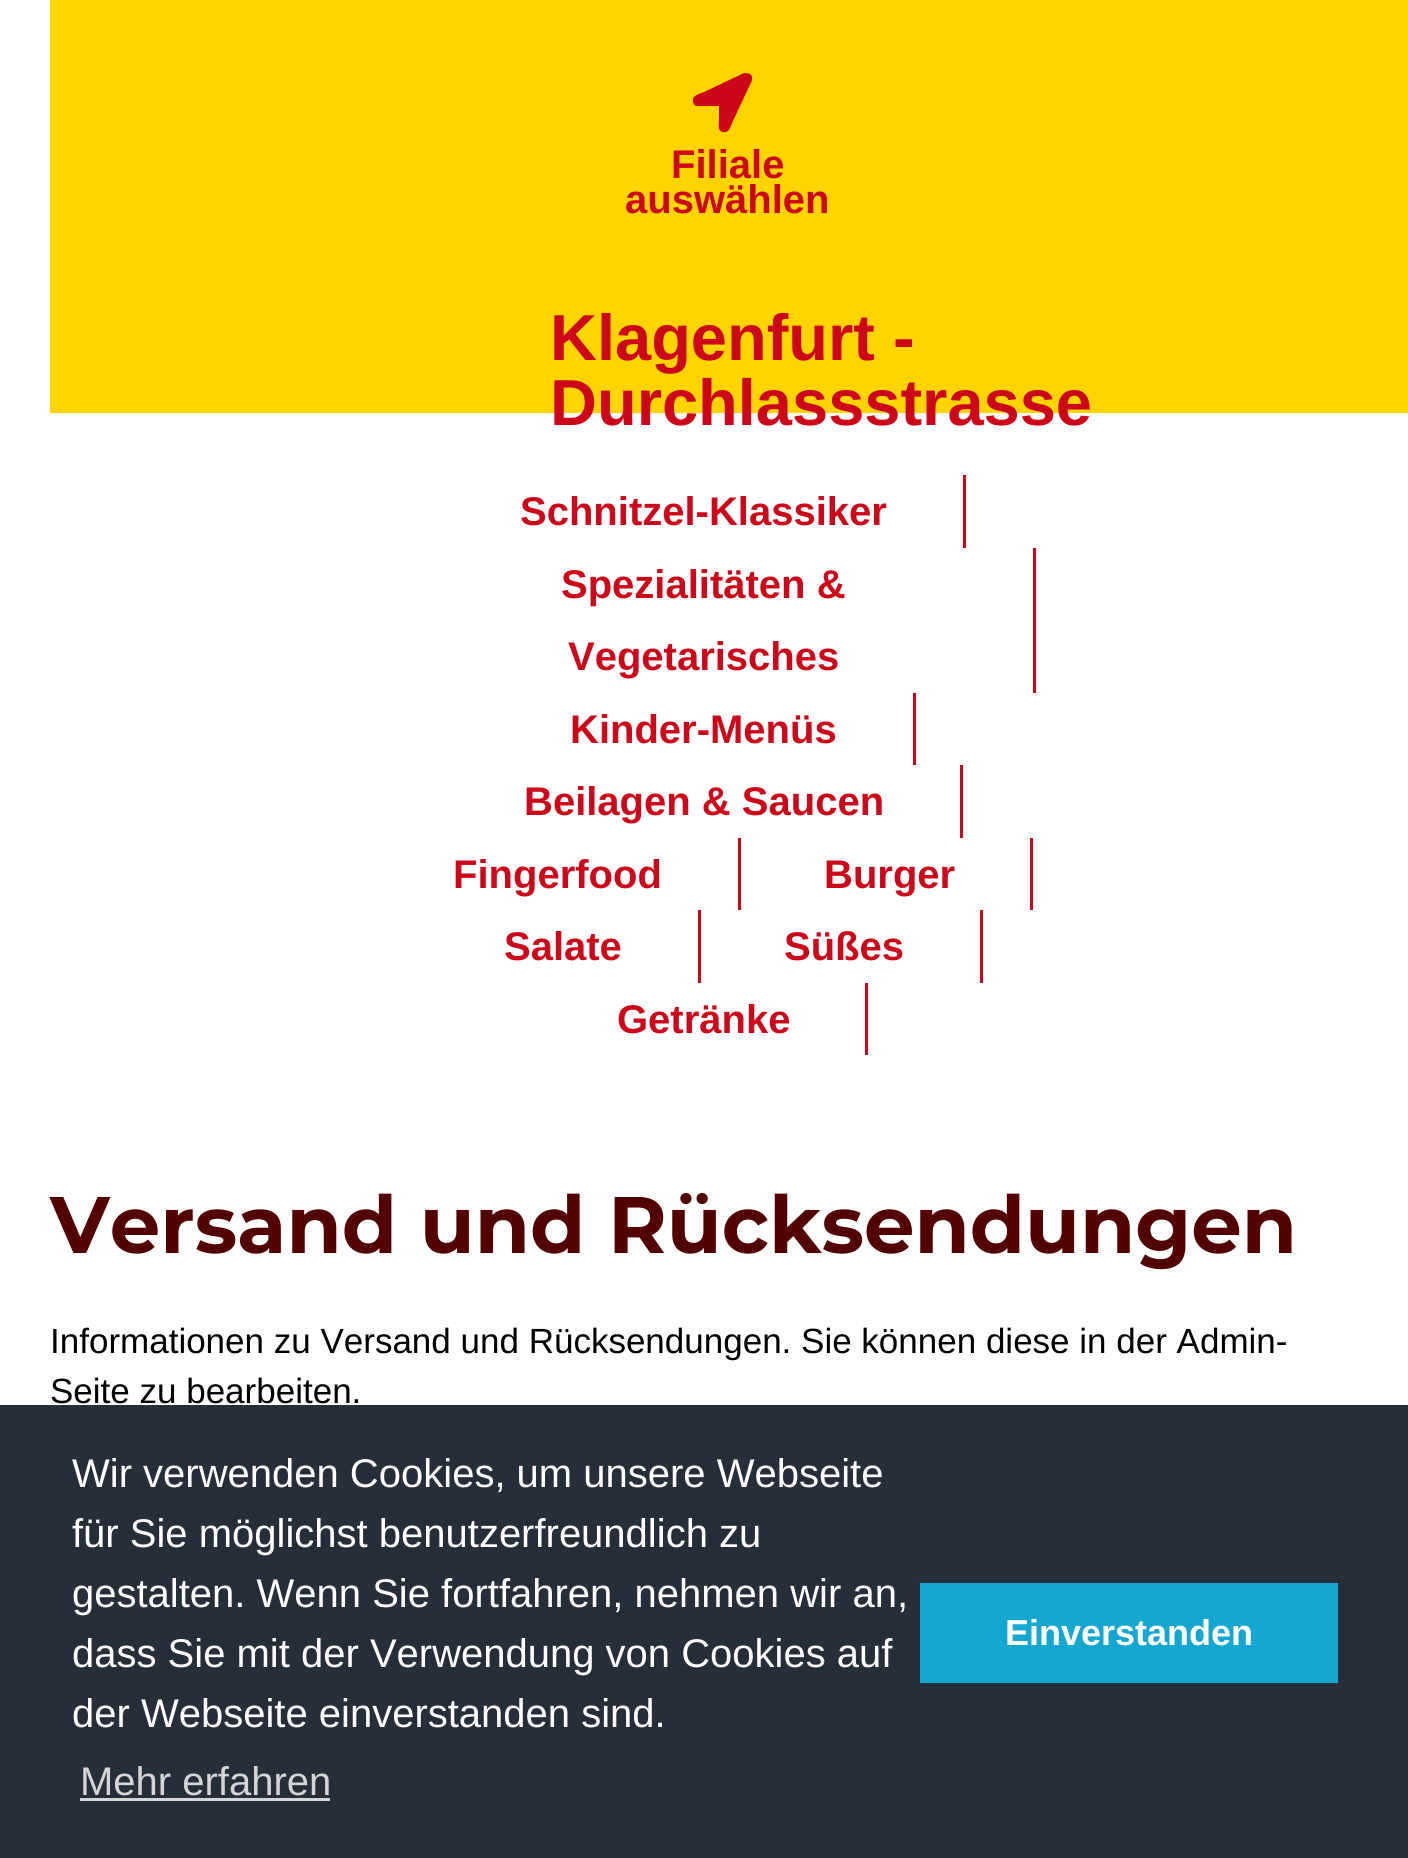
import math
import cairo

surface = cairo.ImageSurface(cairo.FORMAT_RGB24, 1408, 1858)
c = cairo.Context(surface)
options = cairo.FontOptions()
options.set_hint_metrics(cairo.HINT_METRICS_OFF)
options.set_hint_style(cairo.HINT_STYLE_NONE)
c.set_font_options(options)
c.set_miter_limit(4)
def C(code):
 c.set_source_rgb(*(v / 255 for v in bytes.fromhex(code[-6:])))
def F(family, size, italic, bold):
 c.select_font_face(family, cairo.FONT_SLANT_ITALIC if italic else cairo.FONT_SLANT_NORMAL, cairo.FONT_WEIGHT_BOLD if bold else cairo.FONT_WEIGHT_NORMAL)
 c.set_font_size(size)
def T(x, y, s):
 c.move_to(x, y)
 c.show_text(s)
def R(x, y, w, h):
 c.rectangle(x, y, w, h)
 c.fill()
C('ffffff')
c.paint()
C('ffd401')
R(50,0,1358,413)
C('cc0719')
c.new_path()
c.move_to(744,73)
c.curve_to(746,73,748,73,750,74)
c.curve_to(755,78,750,84,748,89)
c.line_to(733,121)
c.curve_to(731,125,729,134,723,132)
c.curve_to(717,131,719,124,719,120)
c.line_to(719,106)
c.line_to(697,106)
c.curve_to(695,106,693,104,693,101)
c.curve_to(692,95,700,94,704,92)
c.close_path()
c.fill()
F('Liberation Sans',40,0,1)
T(671,178,'Filiale')
T(625,213,'auswählen')
F('Liberation Sans',65,0,1)
T(550,360,'Klagenfurt -')
T(550,425,'Durchlassstrasse')
R(963,475,3,73)
F('Liberation Sans',40,0,1)
T(520,525,'Schnitzel-Klassiker')
R(1033,548,3,145)
T(561,598,'Spezialitäten &')
T(568,670,'Vegetarisches')
R(913,693,3,72)
T(570,743,'Kinder-Menüs')
R(960,765,3,73)
T(524,815,'Beilagen & Saucen')
R(738,838,3,72)
T(453,888,'Fingerfood')
R(1030,838,3,72)
T(824,888,'Burger')
R(698,910,3,73)
T(504,960,'Salate')
R(980,910,3,73)
T(784,960,'Süßes')
R(865,983,3,72)
T(617,1033,'Getränke')
F('Montserrat',80,0,1)
C('520000')
T(50,1253,'Versand und Rücksendungen')
F('Liberation Sans',35,0,0)
C('000000')
T(50,1353,'Informationen zu Versand und Rücksendungen. Sie können diese in der Admin-')
T(50,1403,'Seite zu bearbeiten.')
C('252e39')
R(0,1405,1408,453)
F('Liberation Sans',40,0,0)
C('ffffff')
T(72,1487,'Wir verwenden Cookies, um unsere Webseite')
T(72,1547,'für Sie möglichst benutzerfreundlich zu')
T(72,1607,'gestalten. Wenn Sie fortfahren, nehmen wir an,')
T(72,1667,'dass Sie mit der Verwendung von Cookies auf')
T(72,1727,'der Webseite einverstanden sind.')
C('d3d5d7')
T(80,1795,'Mehr erfahren')
R(80,1798,250,3)
C('14a7d0')
R(920,1583,418,100)
F('Liberation Sans',36,0,1)
C('ffffff')
T(1005,1645,'Einverstanden')
surface.write_to_png('o.png')
